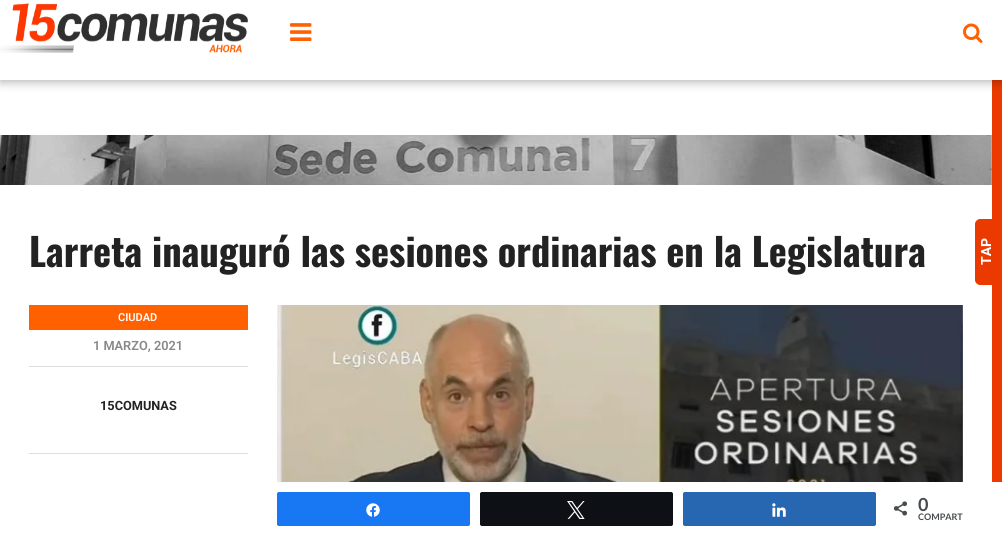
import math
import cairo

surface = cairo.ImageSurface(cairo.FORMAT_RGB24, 1002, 536)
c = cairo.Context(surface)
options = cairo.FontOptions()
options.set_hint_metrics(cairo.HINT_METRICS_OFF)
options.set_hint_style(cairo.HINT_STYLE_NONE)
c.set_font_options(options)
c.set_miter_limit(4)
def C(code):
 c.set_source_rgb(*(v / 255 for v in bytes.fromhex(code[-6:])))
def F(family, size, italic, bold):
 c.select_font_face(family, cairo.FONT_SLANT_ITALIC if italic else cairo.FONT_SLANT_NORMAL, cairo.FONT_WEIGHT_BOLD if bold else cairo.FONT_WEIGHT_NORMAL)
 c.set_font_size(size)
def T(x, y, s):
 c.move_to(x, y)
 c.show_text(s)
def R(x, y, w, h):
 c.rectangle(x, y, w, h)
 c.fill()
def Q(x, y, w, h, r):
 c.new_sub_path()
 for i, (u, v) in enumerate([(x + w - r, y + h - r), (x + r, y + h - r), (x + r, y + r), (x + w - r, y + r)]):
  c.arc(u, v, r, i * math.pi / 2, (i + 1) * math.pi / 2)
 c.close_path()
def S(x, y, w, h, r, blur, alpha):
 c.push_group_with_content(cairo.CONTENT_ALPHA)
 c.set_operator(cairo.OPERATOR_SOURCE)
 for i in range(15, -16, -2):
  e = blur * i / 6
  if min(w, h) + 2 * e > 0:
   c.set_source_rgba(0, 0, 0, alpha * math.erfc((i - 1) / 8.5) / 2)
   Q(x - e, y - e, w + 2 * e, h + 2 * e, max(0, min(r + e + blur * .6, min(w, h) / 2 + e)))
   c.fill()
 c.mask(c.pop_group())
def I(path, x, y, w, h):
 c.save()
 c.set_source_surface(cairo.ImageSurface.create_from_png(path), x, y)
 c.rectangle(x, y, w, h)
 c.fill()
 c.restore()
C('ffffff')
c.paint()
C('ea3a00')
R(992,80,10,402)
C('000000')
S(0,2,1002,80,0,5,.3)
C('ffffff')
R(0,0,1002,80)
I('1.png',0,3,248,50)
I('2.png',290,23,22,18)
I('3.png',963,23,20,20)
I('4.png',0,135,992,50)
F('Oswald',38.4,0,1)
C('222222')
T(29,267,'Larreta inauguró las sesiones ordinarias en la Legislatura')
C('ff6000')
R(29,305,219,25)
F('Roboto SemiBold',11,0,0)
C('ffffff')
T(118,321,'CIUDAD')
C('dddddd')
R(29,366,219,1)
F('Roboto SemiBold',12.75,0,0)
C('888888')
T(93,350,'1 MARZO, 2021')
C('dddddd')
R(29,453,219,1)
F('Roboto',12.75,0,1)
C('222222')
T(100,410,'15COMUNAS')
I('5.png',277,305,686,177)
C('ea3a00')
c.new_path()
c.move_to(975,280)
c.line_to(975,224)
c.curve_to(975,221,978,219,980,219)
c.line_to(994,219)
c.curve_to(997,219,999,221,999,224)
c.line_to(999,280)
c.curve_to(999,283,997,285,994,285)
c.line_to(980,285)
c.curve_to(978,285,975,283,975,280)
c.close_path()
c.fill()
F('Roboto',14,0,1)
C('ffffff')
c.save()
c.translate(991,265)
c.rotate(-90 * math.pi / 180)
T(0,0,'TAP')
c.restore()
C('1877f2')
Q(277.5,492.5,192,33,1.5)
c.fill_preserve()
c.set_line_width(1)
c.stroke()
I('6.png',366,503,14,14)
C('0d1014')
Q(480.5,492.5,192,33,1.5)
c.fill_preserve()
c.stroke()
I('7.png',567,501,18,18)
C('2767b1')
Q(683.5,492.5,192,33,1.5)
c.fill_preserve()
c.stroke()
I('8.png',772,503,14,14)
I('9.png',893,501,14,15)
F('Lato',18,0,1)
C('474b4d')
T(918,511,'0')
F('Lato',9,0,1)
T(918,520,'COMPART')
surface.write_to_png('o.png')
